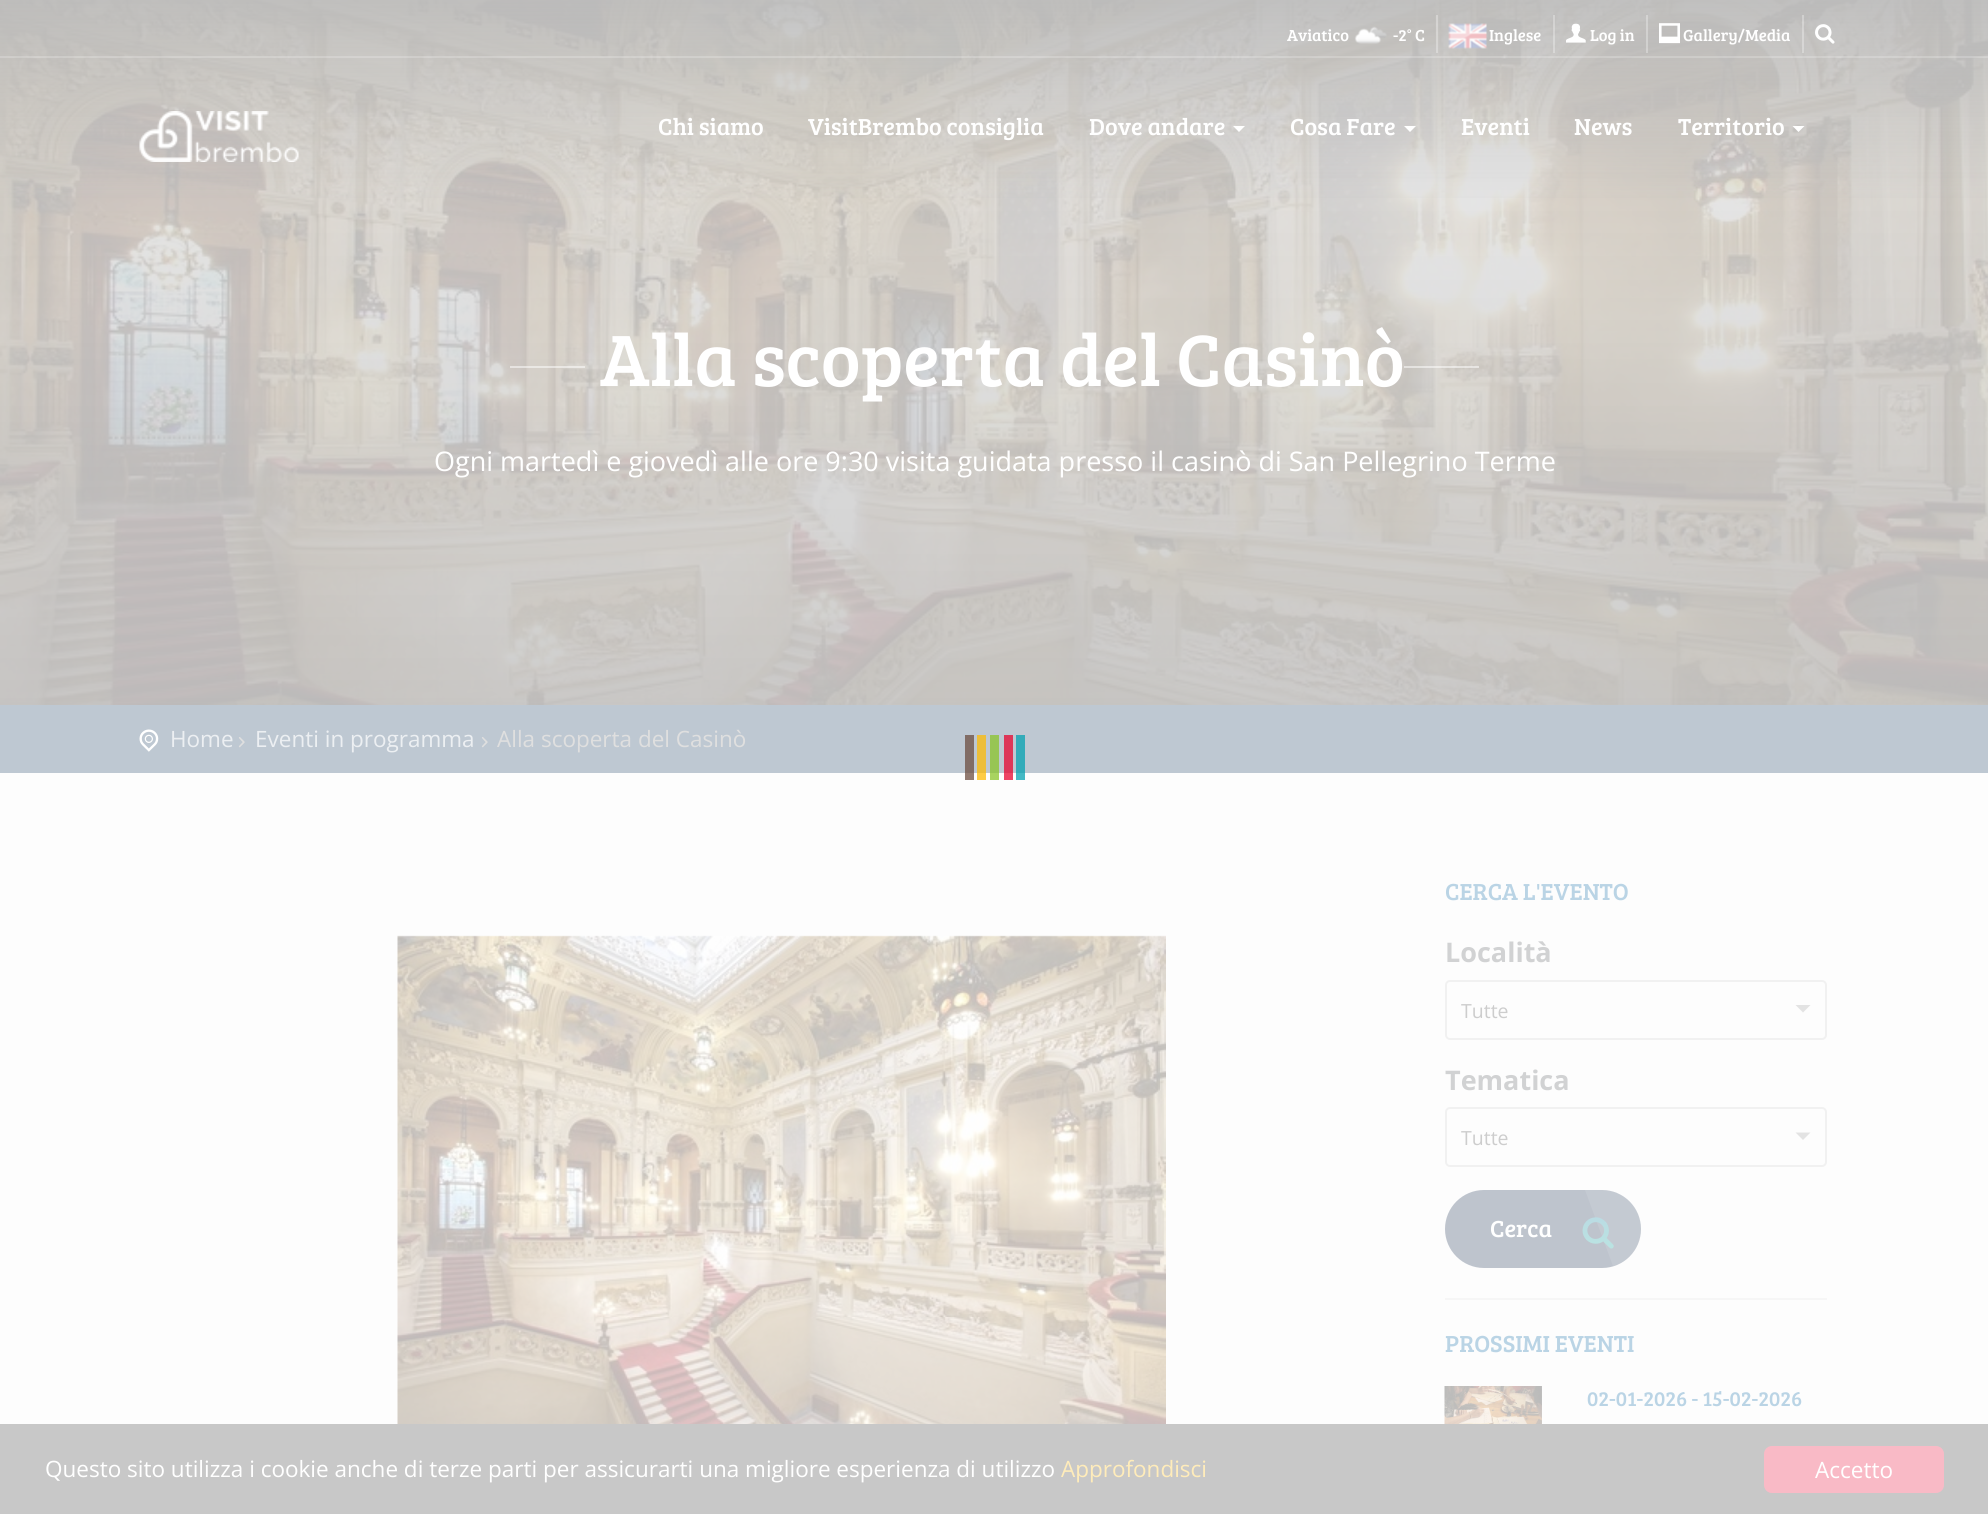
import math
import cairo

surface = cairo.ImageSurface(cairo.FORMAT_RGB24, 1988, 1514)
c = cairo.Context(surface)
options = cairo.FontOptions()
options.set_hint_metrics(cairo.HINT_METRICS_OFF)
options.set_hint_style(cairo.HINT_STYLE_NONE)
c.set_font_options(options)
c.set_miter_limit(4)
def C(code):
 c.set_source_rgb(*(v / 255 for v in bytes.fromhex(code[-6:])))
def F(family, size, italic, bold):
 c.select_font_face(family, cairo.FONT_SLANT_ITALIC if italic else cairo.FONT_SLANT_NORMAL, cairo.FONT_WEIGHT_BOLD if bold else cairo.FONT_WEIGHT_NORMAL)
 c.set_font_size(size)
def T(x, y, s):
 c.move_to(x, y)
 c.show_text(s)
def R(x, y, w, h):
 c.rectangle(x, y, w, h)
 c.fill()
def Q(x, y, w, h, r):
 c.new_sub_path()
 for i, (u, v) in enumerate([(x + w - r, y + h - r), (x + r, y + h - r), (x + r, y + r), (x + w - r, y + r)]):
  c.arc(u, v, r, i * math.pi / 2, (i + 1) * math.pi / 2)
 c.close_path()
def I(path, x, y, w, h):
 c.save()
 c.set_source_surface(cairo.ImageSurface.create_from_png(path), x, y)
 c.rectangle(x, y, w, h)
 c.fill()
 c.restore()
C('fdfdfd')
c.paint()
C('44b9c5')
R(1016,773,9,7)
C('ee4464')
R(1004,773,9,7)
C('a8d35f')
R(990,773,9,7)
C('fecc44')
R(977,773,9,7)
C('927a70')
R(965,773,9,7)
I('1.png',0,0,1988,705)
I('8.png',0,0,1988,705)
gradient = cairo.LinearGradient(995,0,995,210)
gradient.add_color_stop_rgba(0,0.729,0.729,0.729,.85)
gradient.add_color_stop_rgba(1,0.729,0.729,0.729,0)
c.set_source(gradient)
R(0,0,1988,198)
c.set_source_rgba(1,1,1,0.2)
R(0,56,1988,2)
F('Bree Serif',16.5,0,0)
C('ffffff')
T(1287,41,'Aviatico')
I('2.png',1354,26,33,18)
T(1393,41,'-2° C')
c.set_source_rgba(1,1,1,0.3)
R(1436,15,2,38)
I('3.png',1448,23,39,26)
C('ffffff')
T(1489,41,'Inglese')
c.set_source_rgba(1,1,1,0.3)
R(1553,15,2,38)
I('4.png',1566,23,20,20)
C('ffffff')
T(1590,41,'Log in')
c.set_source_rgba(1,1,1,0.3)
R(1646,15,2,38)
I('5.png',1659,23,21,21)
C('ffffff')
T(1683,41,'Gallery/Media')
c.set_source_rgba(1,1,1,0.3)
R(1802,15,2,38)
I('6.png',1815,24,20,20)
I('7.png',139,111,160,51)
F('Bree Serif',24,0,0)
C('ffffff')
T(658,135,'Chi siamo')
T(808,135,'VisitBrembo consiglia')
T(1089,135,'Dove andare')
c.new_path()
c.move_to(1233,126)
c.line_to(1245,126)
c.line_to(1239,132)
c.close_path()
c.fill()
T(1290,135,'Cosa Fare')
c.new_path()
c.move_to(1404,126)
c.line_to(1416,126)
c.line_to(1410,132)
c.close_path()
c.fill()
T(1461,135,'Eventi')
T(1574,135,'News')
T(1678,135,'Territorio')
c.new_path()
c.move_to(1792.5,126)
c.line_to(1804.5,126)
c.line_to(1798.5,132)
c.close_path()
c.fill()
c.set_source_rgba(1,1,1,0.5)
R(510,366,75,2)
F('Bree Serif',75,0,0)
C('ffffff')
T(600,386,'Alla scoperta del Casinò')
c.set_source_rgba(1,1,1,0.5)
R(1404,366,75,2)
F('Open Sans',27,0,0)
C('ffffff')
T(434,471,'Ogni martedì e giovedì alle ore 9:30 visita guidata presso il casinò di San Pellegrino Terme')
C('bec8d2')
R(0,705,1988,68)
C('33abb9')
R(1016,735,9,38)
C('dd3658')
R(1004,735,9,38)
C('97c554')
R(990,735,9,38)
C('edbe39')
R(977,735,9,38)
C('816c65')
R(965,735,9,38)
I('9.png',139,729,20,23)
F('Open Sans',22.5,0,0)
C('eceff2')
T(170,747,'Home')
I('10.png',238,737,7,11)
T(255,747,'Eventi in programma')
I('10.png',481,737,7,11)
C('dfdfdf')
T(497,747,'Alla scoperta del Casinò')
I('11.png',397,935,769,489)
F('Bree Serif',24,0,0)
C('bad4e5')
T(1445,900,'CERCA L\'EVENTO')
F('Open Sans',27,0,1)
C('d1d2d3')
T(1445,962,'Località')
Q(1446,981,380,58,4)
C('f1f1f1')
c.stroke()
F('Open Sans',19.5,0,0)
C('cdcdcd')
T(1461,1018,'Tutte')
C('e3e3e3')
c.new_path()
c.move_to(1795.5,1005)
c.line_to(1810.5,1005)
c.line_to(1803,1012.5)
c.close_path()
c.fill()
F('Open Sans',27,0,1)
C('d1d2d3')
T(1445,1090,'Tematica')
Q(1446,1108,380,58,4)
C('f1f1f1')
c.stroke()
F('Open Sans',19.5,0,0)
C('cdcdcd')
T(1461,1145,'Tutte')
C('e3e3e3')
c.new_path()
c.move_to(1795.5,1132.5)
c.line_to(1810.5,1132.5)
c.line_to(1803,1140)
c.close_path()
c.fill()
C('bec4cd')
Q(1445,1190,196,78,39)
c.fill()
c.set_source_rgba(1,1,1,0.1)
c.new_path()
c.move_to(1613,1266)
c.line_to(1585,1190)
c.curve_to(1596,1190,1607,1189,1617,1193)
c.curve_to(1651,1207,1648,1256,1613,1266)
c.close_path()
c.fill()
F('Bree Serif',24,0,0)
C('ffffff')
T(1490,1237,'Cerca')
I('12.png',1582,1217,32,32)
C('f6f6f6')
R(1445,1298,382,2)
C('bad4e5')
T(1445,1352,'PROSSIMI EVENTI')
I('13.png',1444,1386,98,38)
F('Bree Serif',21,0,0)
T(1587,1406,'02-01-2026 - 15-02-2026')
C('c8c8c8')
R(0,1424,1988,90)
F('Open Sans',22.5,0,0)
C('ffffff')
T(45,1477,'Questo sito utilizza i cookie anche di terze parti per assicurarti una migliore esperienza di utilizzo')
C('ffecba')
T(1061,1477,'Approfondisci')
C('f9bac6')
Q(1764,1446,180,47,8)
c.fill()
C('ffffff')
T(1815,1478,'Accetto')
surface.write_to_png('o.png')
